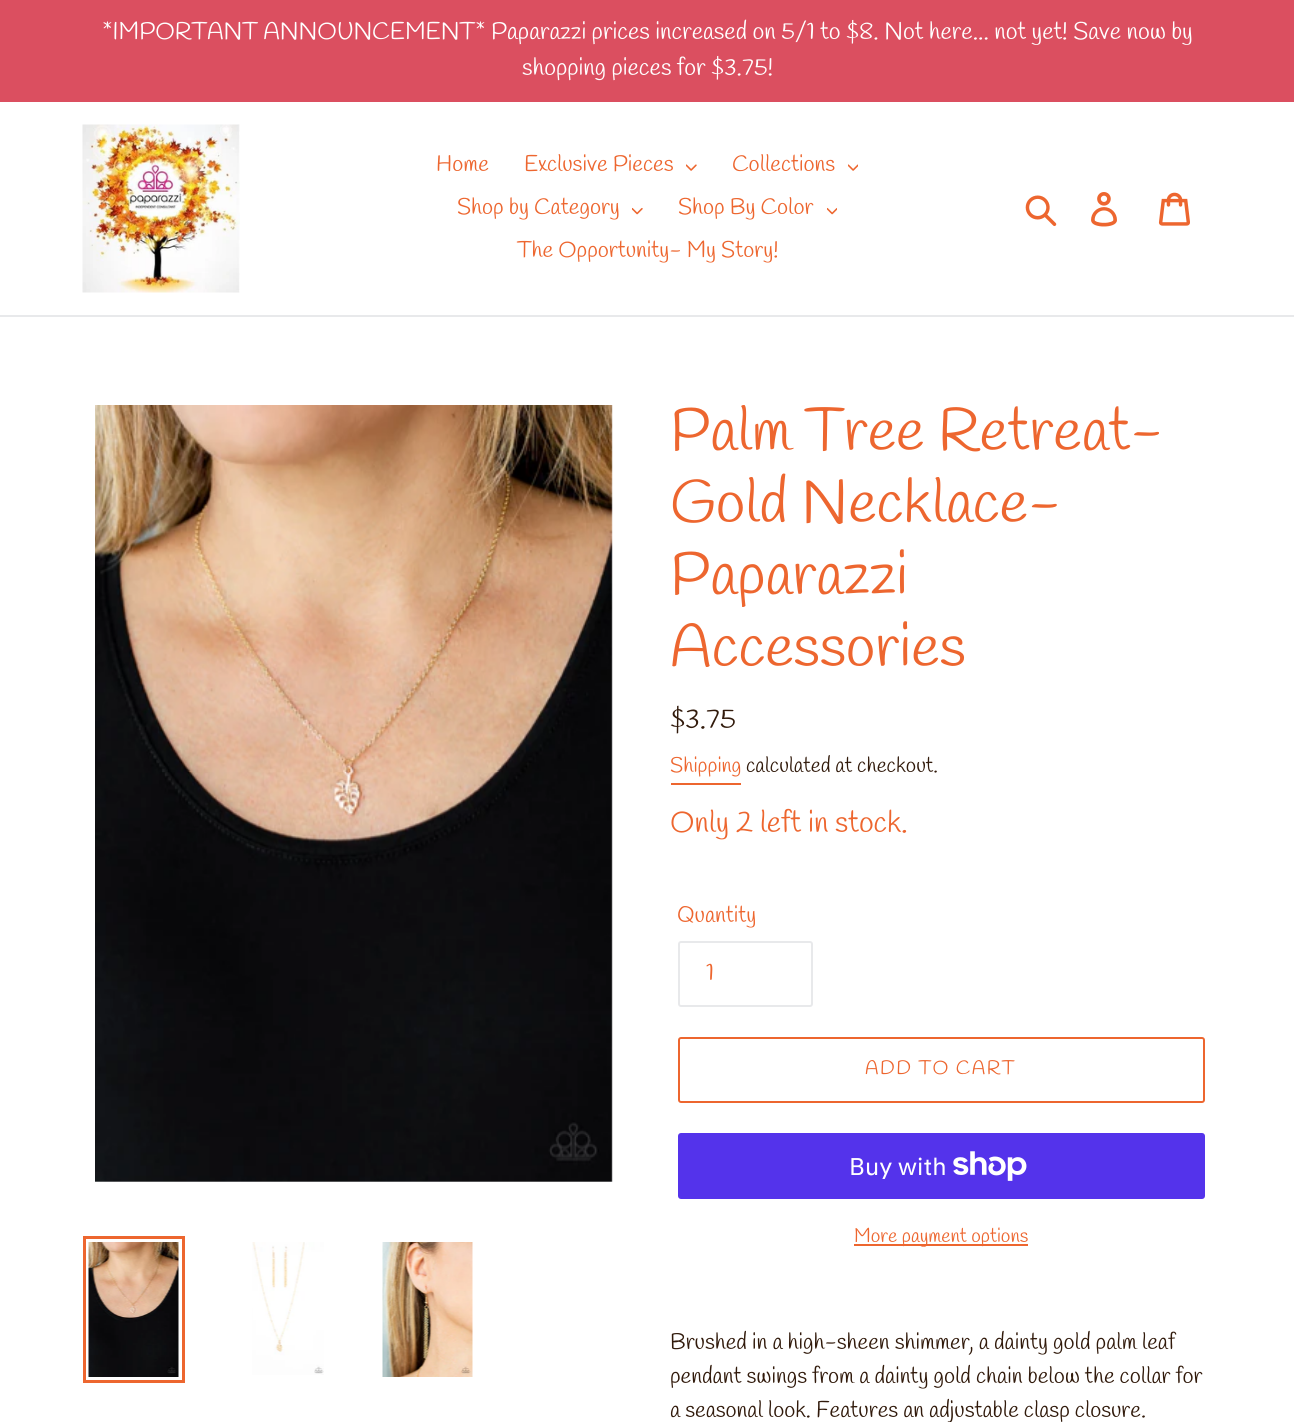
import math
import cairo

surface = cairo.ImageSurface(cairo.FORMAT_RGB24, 1294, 1422)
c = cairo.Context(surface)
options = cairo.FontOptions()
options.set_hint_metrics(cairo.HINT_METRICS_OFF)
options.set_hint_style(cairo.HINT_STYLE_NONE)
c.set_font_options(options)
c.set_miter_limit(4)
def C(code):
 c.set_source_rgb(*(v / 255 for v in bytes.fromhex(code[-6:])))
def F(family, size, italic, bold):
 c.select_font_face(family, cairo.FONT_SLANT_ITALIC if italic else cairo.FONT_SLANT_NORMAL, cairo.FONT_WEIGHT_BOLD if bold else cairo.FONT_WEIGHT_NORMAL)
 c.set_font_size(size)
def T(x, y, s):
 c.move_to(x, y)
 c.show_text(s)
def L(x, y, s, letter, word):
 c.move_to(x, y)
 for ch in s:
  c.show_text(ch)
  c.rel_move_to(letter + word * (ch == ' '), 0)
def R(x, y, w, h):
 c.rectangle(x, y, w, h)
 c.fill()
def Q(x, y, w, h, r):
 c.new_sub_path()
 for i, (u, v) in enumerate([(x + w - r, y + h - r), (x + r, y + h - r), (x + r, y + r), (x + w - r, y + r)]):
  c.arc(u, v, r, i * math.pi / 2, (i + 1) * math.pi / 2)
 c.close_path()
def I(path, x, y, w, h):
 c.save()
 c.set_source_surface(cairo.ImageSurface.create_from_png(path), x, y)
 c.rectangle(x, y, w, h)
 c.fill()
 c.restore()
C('ffffff')
c.paint()
C('db4f60')
R(0,0,1294,102)
F('Handlee',24,0,0)
C('ffffff')
T(102,39,'*IMPORTANT ANNOUNCEMENT* Paparazzi prices increased on 5/1 to $8. Not here... not yet! Save now by')
T(522,75,'shopping pieces for $3.75!')
C('e8e9eb')
R(0,315,1294,2)
I('1.png',82,124,158,169)
F('Handlee',22.5,0,0)
C('ed662f')
T(436,171,'Home')
T(524,171,'Exclusive Pieces')
I('2.png',686,164,11,7)
T(732,171,'Collections')
I('3.png',848,164,10,7)
T(457,214,'Shop by Category')
I('4.png',632,207,11,8)
T(678,214,'Shop By Color')
I('5.png',827,207,10,8)
T(517,257,'The Opportunity- My Story!')
I('6.png',1025,195,32,32)
I('7.png',1091,192,26,35)
I('8.png',1158,192,32,34)
I('9.png',95,405,518,777)
c.rectangle(84.5,1237.5,99,144)
c.set_line_width(3)
c.stroke()
I('10.png',88,1242,91,135)
I('11.png',252,1242,72,133)
I('12.png',382,1242,91,135)
F('Handlee',60,0,0)
T(670,450,'Palm Tree Retreat-')
T(670,522,'Gold Necklace-')
T(670,594,'Paparazzi')
T(670,666,'Accessories')
F('Handlee',28,0,0)
C('311a0b')
T(670,728,'$3.75')
F('Handlee',21,0,0)
C('ed662f')
T(670,772,'Shipping')
R(671,783,70,2)
C('311a0b')
T(746,772,'calculated at checkout.')
F('Handlee',30,0,0)
C('ed662f')
T(670,832,'Only 2 left in stock.')
F('Handlee',22.5,0,0)
T(677,922,'Quantity')
Q(679,942,133,64,2)
C('e8e9eb')
c.set_line_width(2)
c.stroke()
F('Handlee',24,0,0)
C('ed662f')
T(706,980,'1')
Q(679,1038,525,64,2)
c.stroke()
F('Handlee',19.5,0,0)
L(865,1074,'ADD TO CART',1.5,0)
C('5433eb')
Q(678,1133,527,66,3)
c.fill()
F('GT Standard',24,0,0)
C('ffffff')
T(849,1175,'Buy with')
I('13.png',953,1151,74,30)
C('ed662f')
R(854,1244,174,2)
F('Handlee',19.5,0,0)
T(854,1242,'More payment options')
F('Handlee',22.5,0,0)
C('311a0b')
T(670,1349,'Brushed in a high-sheen shimmer, a dainty gold palm leaf')
T(670,1383,'pendant swings from a dainty gold chain below the collar for')
T(670,1417,'a seasonal look. Features an adjustable clasp closure.')
surface.write_to_png('o.png')
